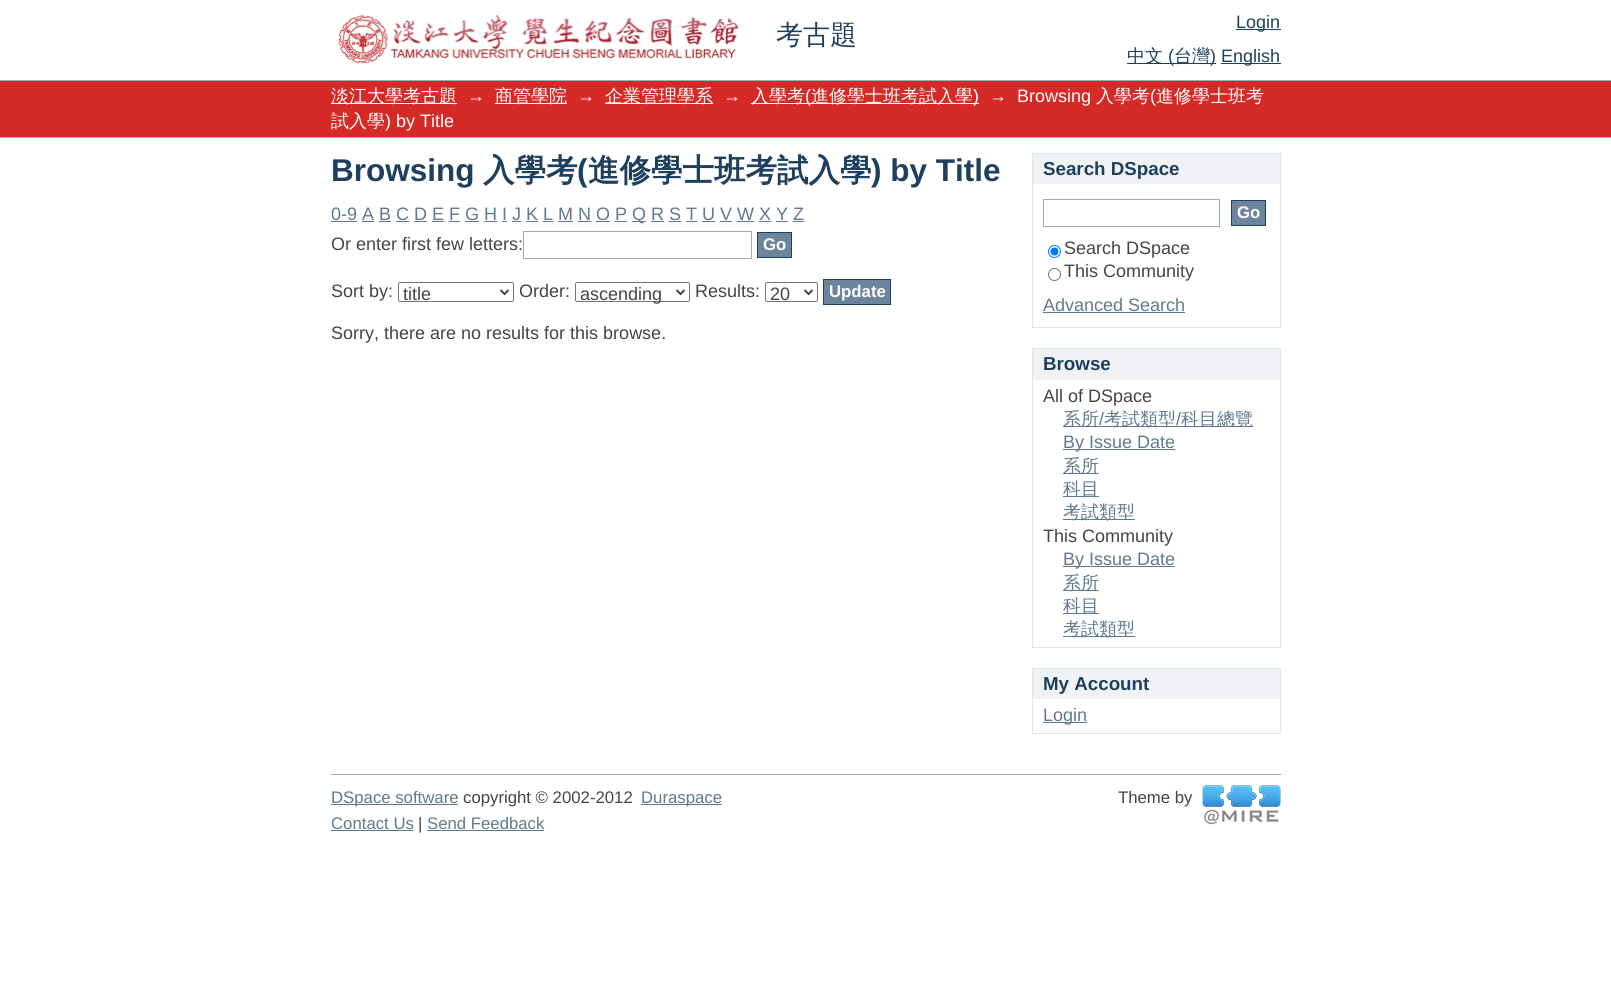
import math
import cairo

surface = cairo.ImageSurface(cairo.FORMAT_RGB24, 1611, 981)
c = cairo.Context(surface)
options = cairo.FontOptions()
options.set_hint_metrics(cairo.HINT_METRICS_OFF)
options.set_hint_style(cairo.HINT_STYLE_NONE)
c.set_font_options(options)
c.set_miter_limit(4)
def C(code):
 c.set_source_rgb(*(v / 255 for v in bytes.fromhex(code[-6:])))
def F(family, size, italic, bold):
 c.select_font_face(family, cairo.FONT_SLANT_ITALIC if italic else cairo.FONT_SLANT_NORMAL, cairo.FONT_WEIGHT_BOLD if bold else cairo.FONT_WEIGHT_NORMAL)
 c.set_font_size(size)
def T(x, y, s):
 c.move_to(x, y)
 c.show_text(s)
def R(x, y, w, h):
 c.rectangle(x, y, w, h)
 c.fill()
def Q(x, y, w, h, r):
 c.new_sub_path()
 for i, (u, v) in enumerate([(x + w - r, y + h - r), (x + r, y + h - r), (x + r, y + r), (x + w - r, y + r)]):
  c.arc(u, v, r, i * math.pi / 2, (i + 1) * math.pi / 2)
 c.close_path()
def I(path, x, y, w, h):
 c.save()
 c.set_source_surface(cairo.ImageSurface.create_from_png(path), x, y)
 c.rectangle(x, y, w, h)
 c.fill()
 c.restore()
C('ffffff')
c.paint()
I('1.png',338,14,401,50)
F('WenQuanYi Zen Hei Medium',27,0,0)
C('1f3f5e')
T(776,44,'考古題')
R(1236,29,45,1)
F('Liberation Sans',18,0,0)
T(1236,28,'Login')
R(1127,63,89,1)
F('WenQuanYi Zen Hei Medium',18,0,0)
T(1127,62,'中文')
F('Liberation Sans',18,0,0)
T(1168,62,'(')
F('WenQuanYi Zen Hei Medium',18,0,0)
T(1174,62,'台灣')
F('Liberation Sans',18,0,0)
T(1210,62,')')
R(1221,63,60,1)
T(1221,62,'English')
C('d62a27')
R(0,81,1611,56)
C('9cacba')
R(0,80,1611,1)
R(0,137,1611,1)
C('ffffff')
R(331,103,126,1)
F('WenQuanYi Zen Hei Medium',18,0,0)
T(331,102,'淡江大學考古題')
F('Liberation Sans',18,0,0)
T(467,102,'→')
R(495,103,72,1)
F('WenQuanYi Zen Hei Medium',18,0,0)
T(495,102,'商管學院')
F('Liberation Sans',18,0,0)
T(577,102,'→')
R(605,103,108,1)
F('WenQuanYi Zen Hei Medium',18,0,0)
T(605,102,'企業管理學系')
F('Liberation Sans',18,0,0)
T(723,102,'→')
R(751,103,228,1)
F('WenQuanYi Zen Hei Medium',18,0,0)
T(751,102,'入學考')
F('Liberation Sans',18,0,0)
T(805,102,'(')
F('WenQuanYi Zen Hei Medium',18,0,0)
T(811,102,'進修學士班考試入學')
F('Liberation Sans',18,0,0)
T(973,102,')')
T(989,102,'→')
T(1017,102,'Browsing')
F('WenQuanYi Zen Hei Medium',18,0,0)
T(1096,102,'入學考')
F('Liberation Sans',18,0,0)
T(1150,102,'(')
F('WenQuanYi Zen Hei Medium',18,0,0)
T(1156,102,'進修學士班考')
T(331,127,'試入學')
F('Liberation Sans',18,0,0)
T(385,127,') by Title')
F('Liberation Sans',31.5,0,1)
C('1f3f5e')
T(331,181,'Browsing')
F('WenQuanYi Zen Hei',31.5,0,1)
T(483,181,'入學考')
F('Liberation Sans',31.5,0,1)
T(577,181,'(')
F('WenQuanYi Zen Hei',31.5,0,1)
T(588,181,'進修學士班考試入學')
F('Liberation Sans',31.5,0,1)
T(871,181,') by Title')
F('Liberation Sans',18,0,0)
C('607890')
T(331,220,'0-9 A B C D E F G H I J K L M N O P')
R(331,221,26,1)
R(632,221,14,1)
T(632,220,'Q R S T U V W X Y Z')
R(362,221,12,1)
R(379,221,12,1)
R(396,221,13,1)
R(414,221,13,1)
R(432,221,12,1)
R(449,221,11,1)
R(465,221,14,1)
R(484,221,13,1)
R(502,221,5,1)
R(512,221,9,1)
R(526,221,12,1)
R(543,221,10,1)
R(558,221,15,1)
R(578,221,13,1)
R(596,221,14,1)
R(615,221,12,1)
R(651,221,13,1)
R(669,221,12,1)
R(686,221,11,1)
R(702,221,13,1)
R(720,221,12,1)
R(737,221,17,1)
R(759,221,12,1)
R(776,221,12,1)
R(793,221,11,1)
C('444444')
T(331,250,'Or enter first few letters:')
c.rectangle(523.5,231.5,228,27)
C('aaaaaa')
c.set_line_width(1)
c.stroke()
C('6d859c')
c.rectangle(757.5,232.5,34,25)
c.fill_preserve()
C('1f3f5e')
c.stroke()
F('Liberation Sans',16.75,0,1)
C('ffffff')
T(763,250,'Go')
F('Liberation Sans',18,0,0)
C('444444')
T(331,297,'Sort by:')
Q(398.5,282.5,115,19,1.5)
C('767676')
c.stroke()
c.new_path()
c.move_to(500.5,290)
c.line_to(504.5,294)
c.line_to(508.5,290)
C('444444')
c.set_line_width(2)
c.stroke()
T(403,300,'title')
T(519,297,'Order:')
Q(575.5,282.5,114,19,1.5)
C('767676')
c.set_line_width(1)
c.stroke()
c.new_path()
c.move_to(676.5,290)
c.line_to(680.5,294)
c.line_to(684.5,290)
C('444444')
c.set_line_width(2)
c.stroke()
T(580,300,'ascending')
T(695,297,'Results:')
Q(765.5,282.5,52,19,1.5)
C('767676')
c.set_line_width(1)
c.stroke()
c.new_path()
c.move_to(804.5,290)
c.line_to(808.5,294)
c.line_to(812.5,290)
C('444444')
c.set_line_width(2)
c.stroke()
T(770,300,'20')
C('6d859c')
c.rectangle(823.5,279.5,67,25)
c.fill_preserve()
C('1f3f5e')
c.set_line_width(1)
c.stroke()
F('Liberation Sans',16.75,0,1)
C('ffffff')
T(829,297,'Update')
F('Liberation Sans',18,0,0)
C('444444')
T(331,339,'Sorry, there are no results for this browse.')
C('f0f2f5')
R(1033,154,247,30)
C('d8e8eb')
R(1032,153,249,1)
R(1280,153,1,175)
R(1032,153,1,31)
F('Liberation Sans',18.75,0,1)
C('1f3f5e')
T(1043,175,'Search DSpace')
C('d8e8eb')
R(1032,327,249,1)
R(1032,184,1,144)
c.rectangle(1043.5,199.5,176,27)
C('aaaaaa')
c.stroke()
C('6d859c')
c.rectangle(1231.5,200.5,34,25)
c.fill_preserve()
C('1f3f5e')
c.stroke()
F('Liberation Sans',16.75,0,1)
C('ffffff')
T(1237,218,'Go')
c.new_path()
c.arc(1054.5,251.5,6,0,2 * math.pi)
C('0075ff')
c.stroke()
c.arc(1054.5,251.5,4,0,2 * math.pi)
c.fill()
F('Liberation Sans',18,0,0)
C('444444')
T(1064,254,'Search DSpace')
c.new_path()
c.arc(1054.5,274.5,6,0,2 * math.pi)
C('767676')
c.stroke()
C('444444')
T(1064,277,'This Community')
C('607890')
T(1043,311,'Advanced Search')
R(1043,312,142,1)
C('f0f2f5')
R(1033,349,247,31)
C('d8e8eb')
R(1032,348,249,1)
R(1280,348,1,300)
R(1032,348,1,32)
F('Liberation Sans',18.75,0,1)
C('1f3f5e')
T(1043,370,'Browse')
C('d8e8eb')
R(1032,647,249,1)
R(1032,380,1,268)
F('Liberation Sans',18,0,0)
C('444444')
T(1043,402,'All of DSpace')
C('607890')
R(1063,426,190,1)
F('WenQuanYi Zen Hei Medium',18,0,0)
T(1063,425,'系所')
F('Liberation Sans',18,0,0)
T(1099,425,'/')
F('WenQuanYi Zen Hei Medium',18,0,0)
T(1104,425,'考試類型')
F('Liberation Sans',18,0,0)
T(1176,425,'/')
F('WenQuanYi Zen Hei Medium',18,0,0)
T(1181,425,'科目總覽')
R(1063,449,112,1)
F('Liberation Sans',18,0,0)
T(1063,448,'By Issue Date')
R(1063,473,36,1)
F('WenQuanYi Zen Hei Medium',18,0,0)
T(1063,472,'系所')
R(1063,496,36,1)
T(1063,495,'科目')
R(1063,519,72,1)
T(1063,518,'考試類型')
F('Liberation Sans',18,0,0)
C('444444')
T(1043,542,'This Community')
C('607890')
R(1063,566,112,1)
T(1063,565,'By Issue Date')
R(1063,590,36,1)
F('WenQuanYi Zen Hei Medium',18,0,0)
T(1063,589,'系所')
R(1063,613,36,1)
T(1063,612,'科目')
R(1063,636,72,1)
T(1063,635,'考試類型')
C('f0f2f5')
R(1033,669,247,30)
C('d8e8eb')
R(1032,668,249,1)
R(1280,668,1,66)
R(1032,668,1,31)
F('Liberation Sans',18.75,0,1)
C('1f3f5e')
T(1043,690,'My Account')
C('d8e8eb')
R(1032,733,249,1)
R(1032,699,1,35)
C('607890')
R(1043,722,44,1)
F('Liberation Sans',18,0,0)
T(1043,721,'Login')
C('9cacba')
R(331,774,950,1)
C('607890')
R(331,804,127,1)
F('Liberation Sans',16.75,0,0)
T(331,803,'DSpace software')
C('444444')
T(463,803,'copyright © 2002-2012')
C('607890')
R(641,804,81,1)
T(641,803,'Duraspace')
C('444444')
T(1118,803,'Theme by')
I('2.png',1202,785,79,40)
C('607890')
T(331,829,'Contact Us')
R(331,830,82,1)
C('444444')
T(418,829,'|')
C('607890')
T(427,829,'Send Feedback')
R(427,830,117,1)
surface.write_to_png('o.png')
